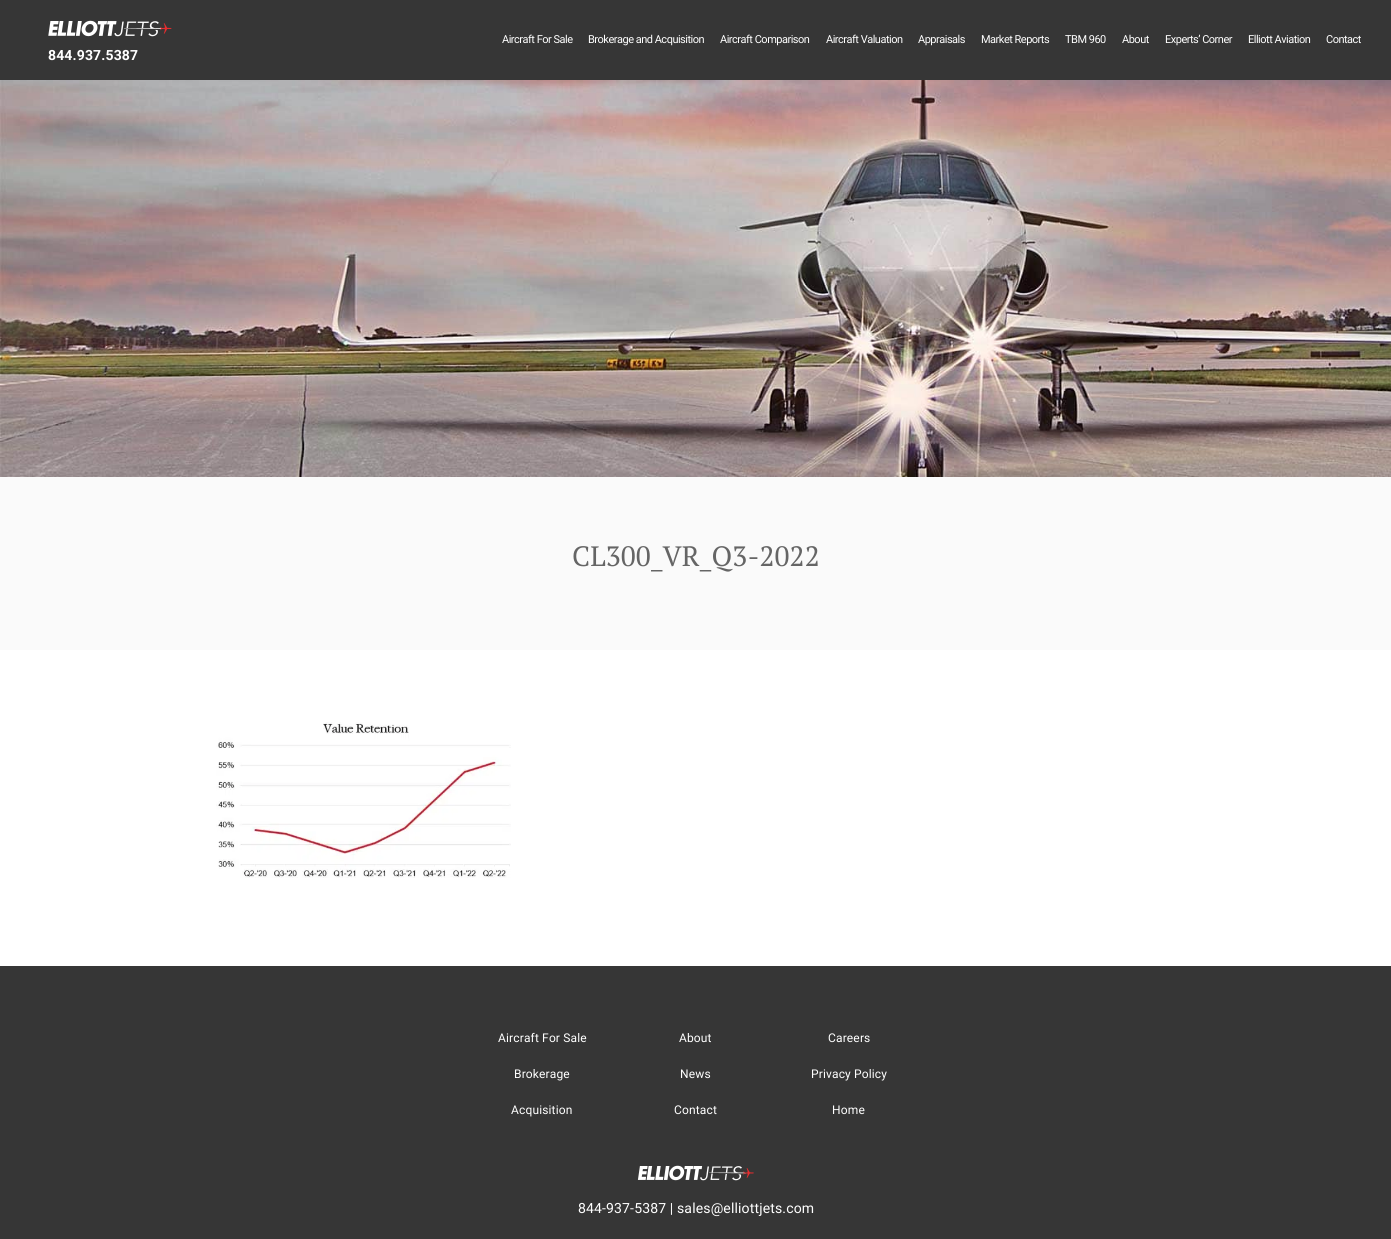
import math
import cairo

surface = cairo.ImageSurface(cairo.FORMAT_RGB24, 1391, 1239)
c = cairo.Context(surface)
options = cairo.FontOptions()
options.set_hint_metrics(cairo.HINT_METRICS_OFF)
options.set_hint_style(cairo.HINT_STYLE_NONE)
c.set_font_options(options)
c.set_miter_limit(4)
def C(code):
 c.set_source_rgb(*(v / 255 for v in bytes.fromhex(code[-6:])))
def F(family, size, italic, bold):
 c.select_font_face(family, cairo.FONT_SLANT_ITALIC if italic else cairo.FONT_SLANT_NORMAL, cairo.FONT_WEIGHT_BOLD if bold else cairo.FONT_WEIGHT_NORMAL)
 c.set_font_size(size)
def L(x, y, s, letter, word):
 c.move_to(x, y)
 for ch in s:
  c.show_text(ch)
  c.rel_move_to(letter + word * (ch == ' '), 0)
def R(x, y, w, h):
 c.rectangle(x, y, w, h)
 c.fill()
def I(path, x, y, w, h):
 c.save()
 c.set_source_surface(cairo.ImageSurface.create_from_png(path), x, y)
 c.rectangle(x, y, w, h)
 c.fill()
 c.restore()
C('363636')
c.paint()
F('Roboto',11,0,0)
C('ffffff')
L(502,43,'Aircraft For Sale',-.5,0)
L(588,43,'Brokerage and Acquisition',-.5,0)
L(720,43,'Aircraft Comparison',-.5,0)
L(826,43,'Aircraft Valuation',-.5,0)
L(918,43,'Appraisals',-.5,0)
L(981,43,'Market Reports',-.5,0)
L(1065,43,'TBM 960',-.5,0)
L(1122,43,'About',-.5,0)
L(1165,43,'Experts’ Corner',-.5,0)
L(1248,43,'Elliott Aviation',-.5,0)
L(1326,43,'Contact',-.5,0)
I('1.png',48,20,124,17)
F('Roboto',14,0,1)
L(48,60,'844.937.5387',.15,0)
I('2.png',0,80,1391,397)
C('fafafa')
R(0,477,1391,173)
F('PT Serif',28,0,0)
C('656565')
L(572,566,'CL300_VR_Q3-2022',.15,0)
C('ffffff')
R(0,650,1391,316)
I('3.png',216,722,295,156)
F('Roboto',12,0,0)
L(498,1042,'Aircraft For Sale',.15,0)
L(679,1042,'About',.15,0)
L(828,1042,'Careers',.15,0)
L(514,1078,'Brokerage',.15,0)
L(680,1078,'News',.15,0)
L(811,1078,'Privacy Policy',.15,0)
L(511,1114,'Acquisition',.15,0)
L(674,1114,'Contact',.15,0)
L(832,1114,'Home',.15,0)
I('4.png',637,1165,117,16)
F('Roboto',14,0,0)
L(578,1213,'844-937-5387 | sales@elliottjets.com',.15,0)
surface.write_to_png('o.png')
